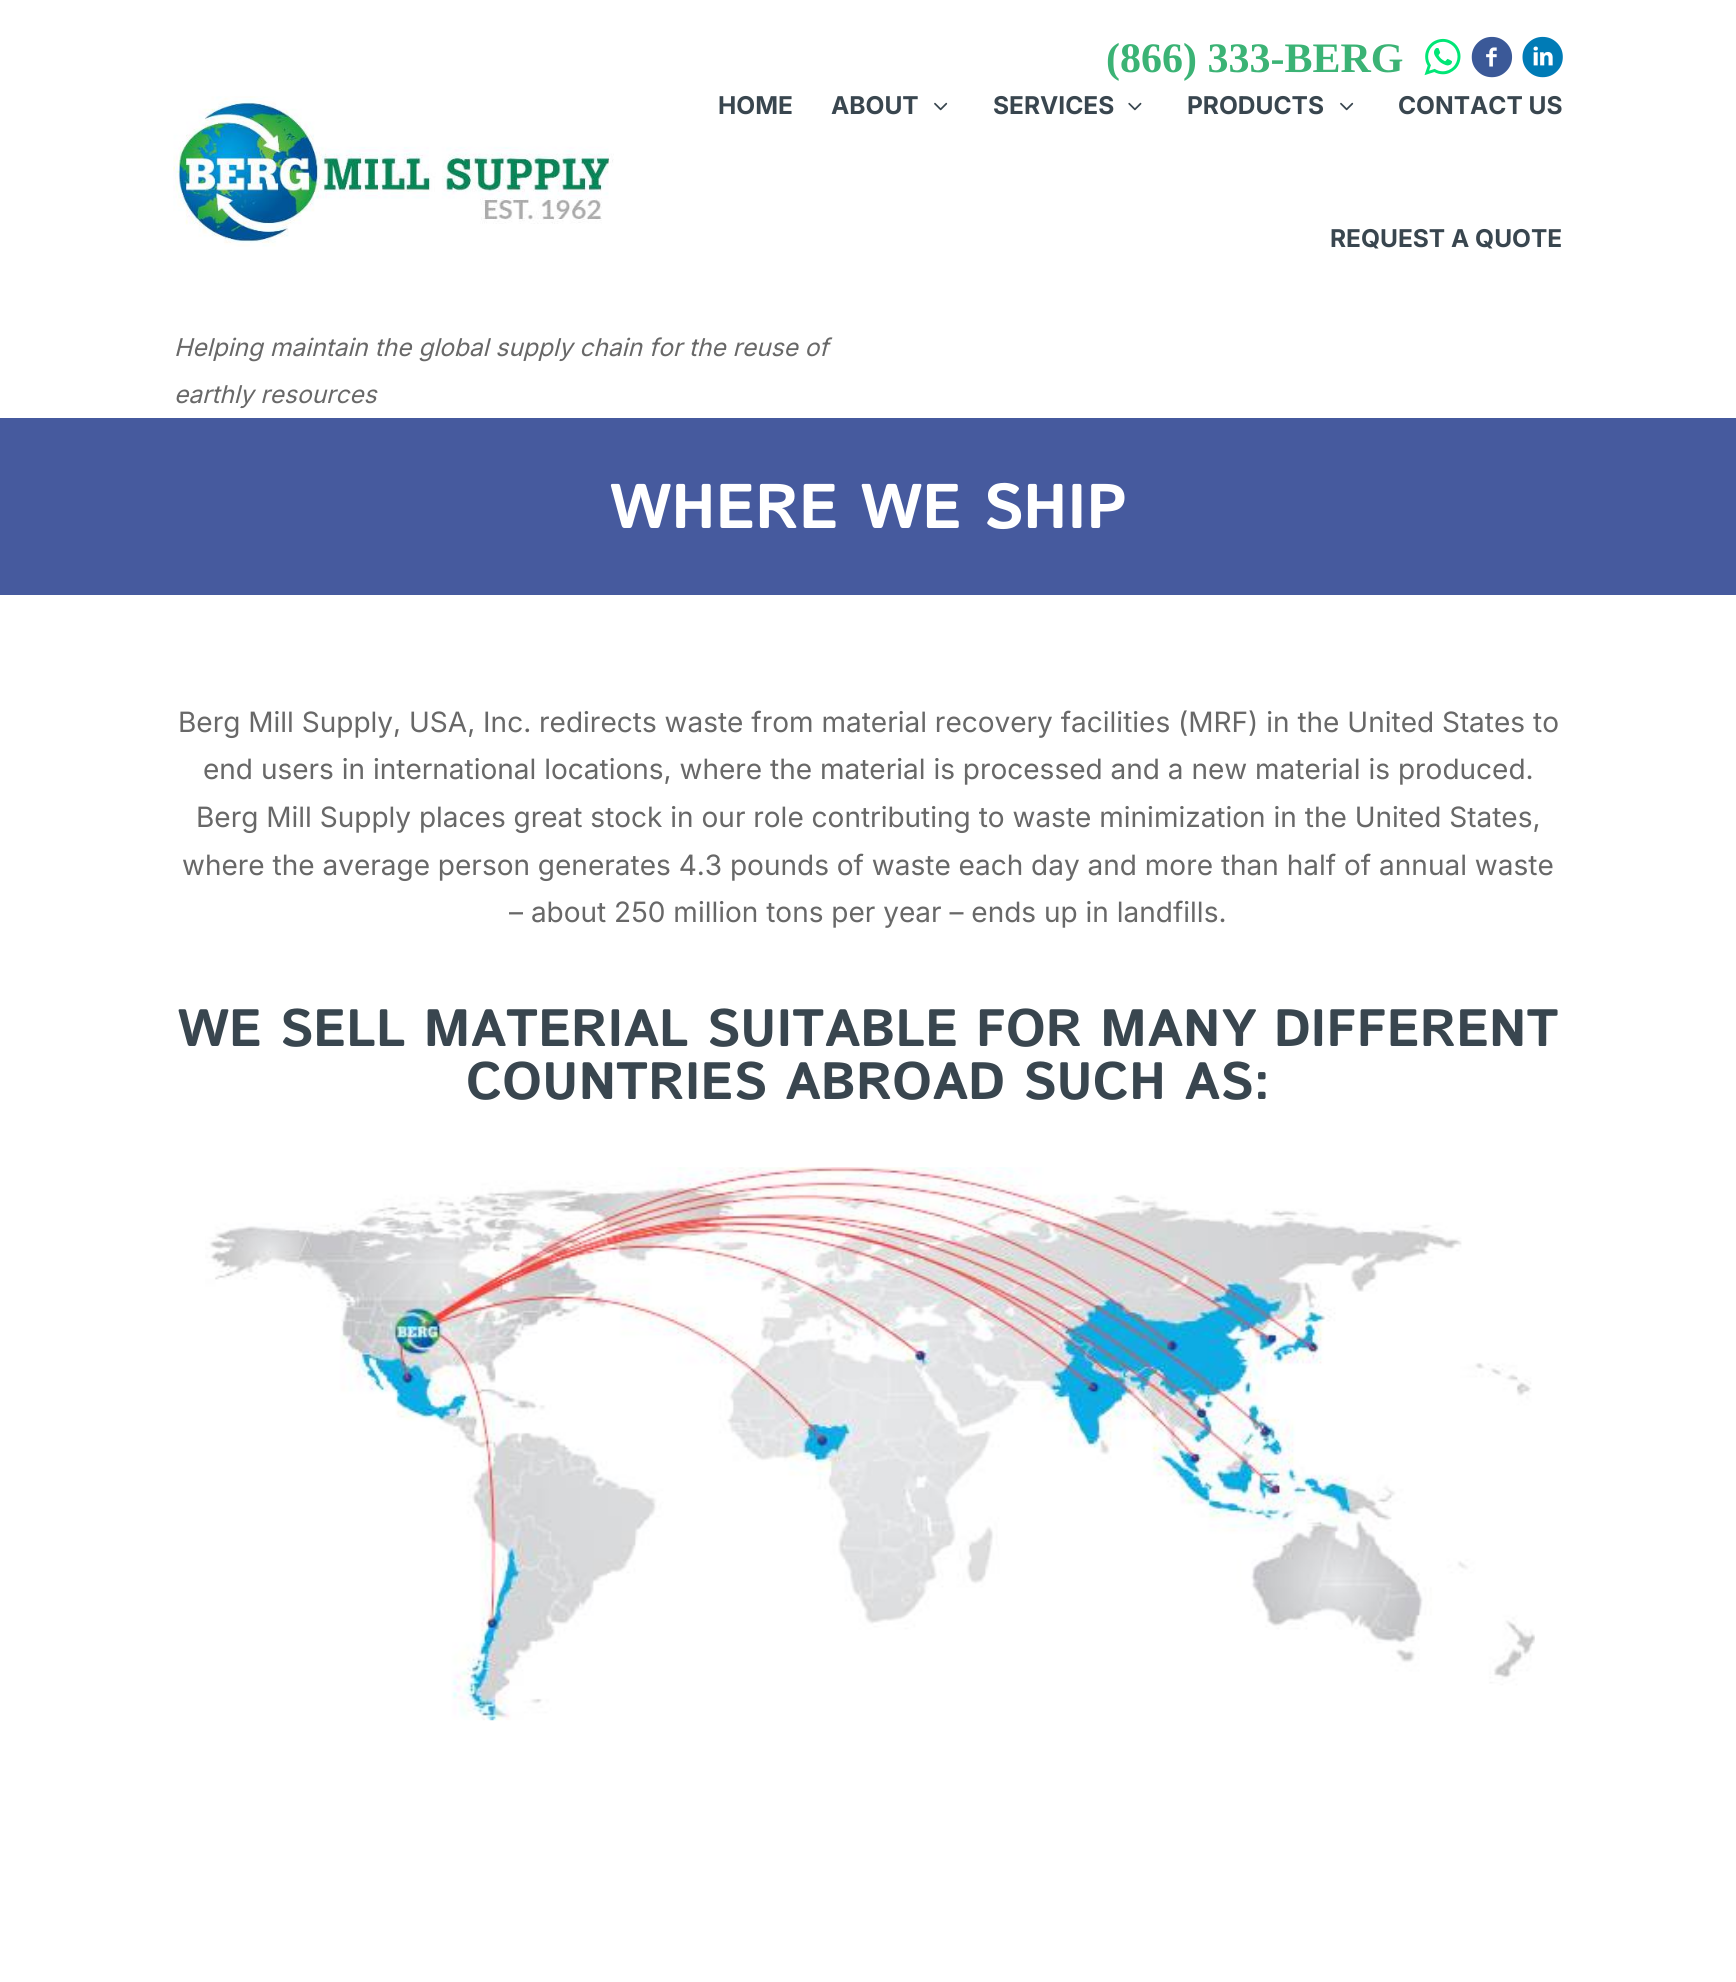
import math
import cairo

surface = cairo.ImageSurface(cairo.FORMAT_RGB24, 1736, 1982)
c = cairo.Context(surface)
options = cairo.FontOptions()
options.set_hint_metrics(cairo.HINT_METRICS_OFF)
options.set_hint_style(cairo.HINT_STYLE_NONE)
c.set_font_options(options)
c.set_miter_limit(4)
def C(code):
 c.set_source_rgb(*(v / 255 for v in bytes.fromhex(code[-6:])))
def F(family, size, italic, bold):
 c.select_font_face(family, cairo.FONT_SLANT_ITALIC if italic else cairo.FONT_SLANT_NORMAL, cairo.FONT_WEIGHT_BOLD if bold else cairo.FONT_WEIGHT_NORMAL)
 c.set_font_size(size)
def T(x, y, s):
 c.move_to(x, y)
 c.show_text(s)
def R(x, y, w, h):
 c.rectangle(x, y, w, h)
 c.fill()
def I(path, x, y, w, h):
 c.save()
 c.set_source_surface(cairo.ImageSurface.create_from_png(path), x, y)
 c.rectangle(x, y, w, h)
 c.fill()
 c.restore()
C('ffffff')
c.paint()
F('Liberation Serif',42,0,1)
C('3bb375')
T(1106,72,'(866) 333-BERG')
I('1.png',1424,38,37,38)
I('2.png',1471,36,42,42)
I('3.png',1522,36,41,42)
I('4.png',173,96,441,151)
F('Inter',24.5,0,1)
C('39464f')
T(718,114,'HOME')
T(831,114,'ABOUT')
I('5.png',934,102,14,9)
T(993,114,'SERVICES')
I('6.png',1128,102,14,9)
T(1187,114,'PRODUCTS')
I('5.png',1340,102,14,9)
T(1398,114,'CONTACT US')
T(1330,247,'REQUEST A QUOTE')
F('Inter',24.5,1,0)
C('686868')
T(174,356,'Helping maintain the global supply chain for the reuse of')
T(174,403,'earthly resources')
C('465a9e')
R(0,418,1736,177)
F('Istok Web',63,0,1)
C('ffffff')
T(609,528,'WHERE WE SHIP')
F('Inter',28,0,0)
C('686868')
T(178,732,'Berg Mill Supply, USA, Inc. redirects waste from material recovery facilities (MRF) in the United States to')
T(203,779,'end users in international locations, where the material is processed and a new material is produced.')
T(196,827,'Berg Mill Supply places great stock in our role contributing to waste minimization in the United States,')
T(182,875,'where the average person generates 4.3 pounds of waste each day and more than half of annual waste')
T(509,922,'– about 250 million tons per year – ends up in landfills.')
F('Istok Web',52.5,0,1)
C('39464f')
T(177,1046,'WE SELL MATERIAL SUITABLE FOR MANY DIFFERENT')
T(466,1099,'COUNTRIES ABROAD SUCH AS:')
I('7.png',205,1167,1330,554)
surface.write_to_png('o.png')
